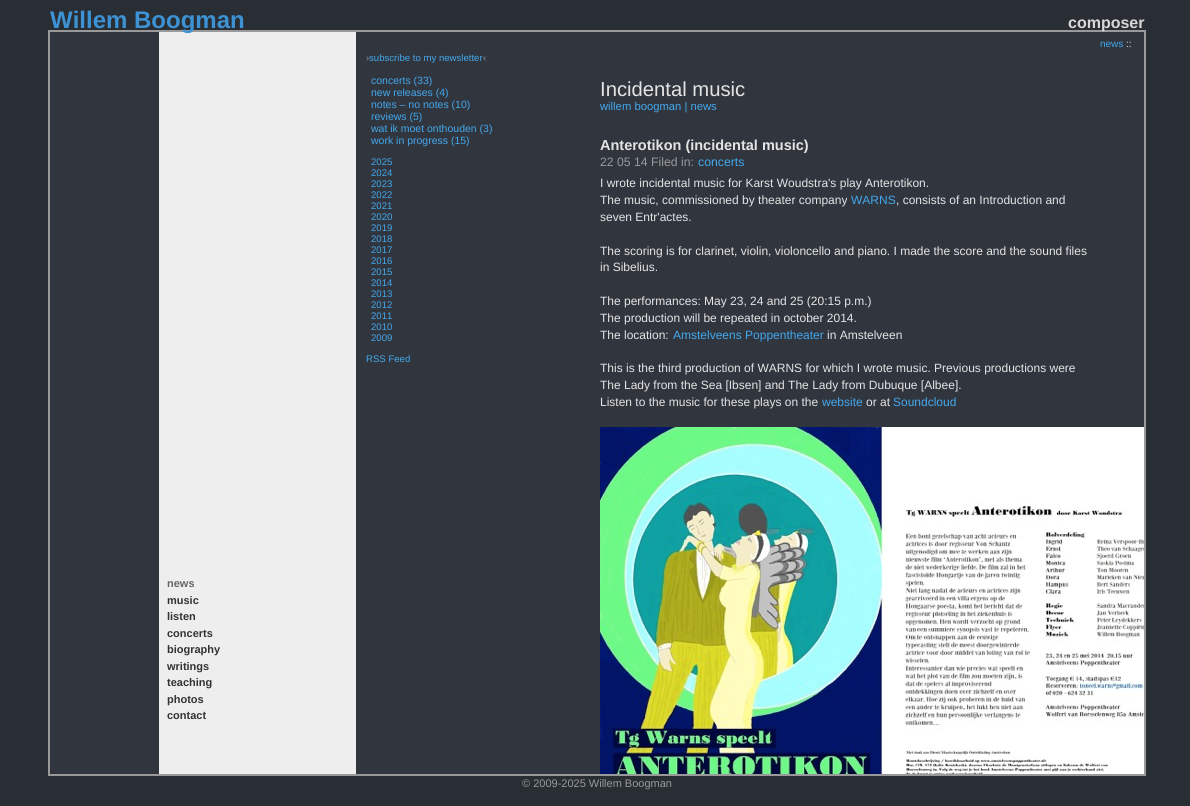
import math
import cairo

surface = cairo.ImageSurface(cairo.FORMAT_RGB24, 1190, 806)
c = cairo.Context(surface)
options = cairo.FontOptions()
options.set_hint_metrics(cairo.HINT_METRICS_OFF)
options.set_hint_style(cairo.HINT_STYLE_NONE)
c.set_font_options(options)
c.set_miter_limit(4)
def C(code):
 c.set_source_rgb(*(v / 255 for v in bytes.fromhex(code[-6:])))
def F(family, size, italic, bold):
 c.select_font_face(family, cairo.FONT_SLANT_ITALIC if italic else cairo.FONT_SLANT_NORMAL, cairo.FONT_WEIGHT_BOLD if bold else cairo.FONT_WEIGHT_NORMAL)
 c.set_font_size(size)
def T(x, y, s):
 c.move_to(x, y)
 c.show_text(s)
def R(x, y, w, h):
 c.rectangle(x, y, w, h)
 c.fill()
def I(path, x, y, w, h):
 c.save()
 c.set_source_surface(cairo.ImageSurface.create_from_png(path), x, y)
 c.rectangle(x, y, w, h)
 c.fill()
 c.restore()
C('292d34')
c.paint()
C('31363e')
c.rectangle(49,31,1096,744)
c.fill_preserve()
C('999999')
c.stroke()
C('eeeeee')
R(159,32,197,742)
F('Liberation Sans',24,0,1)
C('3c92d3')
T(50,28,'Willem Boogman')
F('Liberation Sans',16,0,1)
C('d8d9d7')
T(1068,28,'composer')
F('Liberation Sans',9.6,0,0)
C('999999')
T(366,61,'›')
C('43a7ed')
T(369,61,'subscribe to my newsletter')
C('999999')
T(483,61,'‹')
F('Liberation Sans',10.5,0,0)
C('43a7ed')
T(371,84,'concerts (33)')
T(371,96,'new releases (4)')
T(371,108,'notes – no notes (10)')
T(371,120,'reviews (5)')
T(371,132,'wat ik moet onthouden (3)')
T(371,144,'work in progress (15)')
F('Liberation Sans',9.6,0,0)
T(371,165,'2025')
T(371,176,'2024')
T(371,187,'2023')
T(371,198,'2022')
T(371,209,'2021')
T(371,220,'2020')
T(371,231,'2019')
T(371,242,'2018')
T(371,253,'2017')
T(371,264,'2016')
T(371,275,'2015')
T(371,286,'2014')
T(371,297,'2013')
T(371,308,'2012')
T(371,319,'2011')
T(371,330,'2010')
T(371,341,'2009')
T(366,362,'RSS Feed')
F('Liberation Sans',10,0,0)
T(1100,47,'news')
C('e4e4e4')
T(1126,47,'::')
F('Liberation Sans',20.25,0,0)
T(600,96,'Incidental music')
F('Liberation Sans',11.25,0,0)
C('43a7ed')
T(600,110,'willem boogman | news')
F('Liberation Sans',14.5,0,1)
C('e4e4e4')
T(600,150,'Anterotikon (incidental music)')
F('Liberation Sans',12.25,0,0)
C('999999')
T(600,166,'22 05 14 Filed in:')
C('43a7ed')
T(698,166,'concerts')
F('Liberation Sans',12,0,0)
C('e4e4e4')
T(600,187,'I wrote incidental music for Karst Woudstra\'s play Anterotikon.')
T(600,204,'The music, commissioned by theater company')
C('43a7ed')
T(851,204,'WARNS')
C('e4e4e4')
T(896,204,', consists of an Introduction and')
T(600,221,'seven Entr\'actes.')
T(600,255,'The scoring is for clarinet, violin, violoncello and piano. I made the score and the sound files')
T(600,271,'in Sibelius.')
T(600,305,'The performances: May 23, 24 and 25 (20:15 p.m.)')
T(600,322,'The production will be repeated in october 2014.')
T(600,339,'The location:')
C('43a7ed')
T(673,339,'Amstelveens Poppentheater')
C('e4e4e4')
T(827,339,'in Amstelveen')
T(600,372,'This is the third production of WARNS for which I wrote music. Previous productions were')
T(600,389,'The Lady from the Sea [Ibsen] and The Lady from Dubuque [Albee].')
T(600,406,'Listen to the music for these plays on the')
C('43a7ed')
T(822,406,'website')
C('e4e4e4')
T(866,406,'or at')
C('43a7ed')
T(893,406,'Soundcloud')
I('1.png',600,427,544,347)
F('Liberation Sans',11,0,1)
C('666666')
T(167,587,'news')
C('333333')
T(167,604,'music')
T(167,620,'listen')
T(167,637,'concerts')
T(167,653,'biography')
T(167,670,'writings')
T(167,686,'teaching')
T(167,703,'photos')
T(167,719,'contact')
F('Liberation Sans',11,0,0)
C('999999')
T(522,787,'© 2009-2025 Willem Boogman')
surface.write_to_png('o.png')
